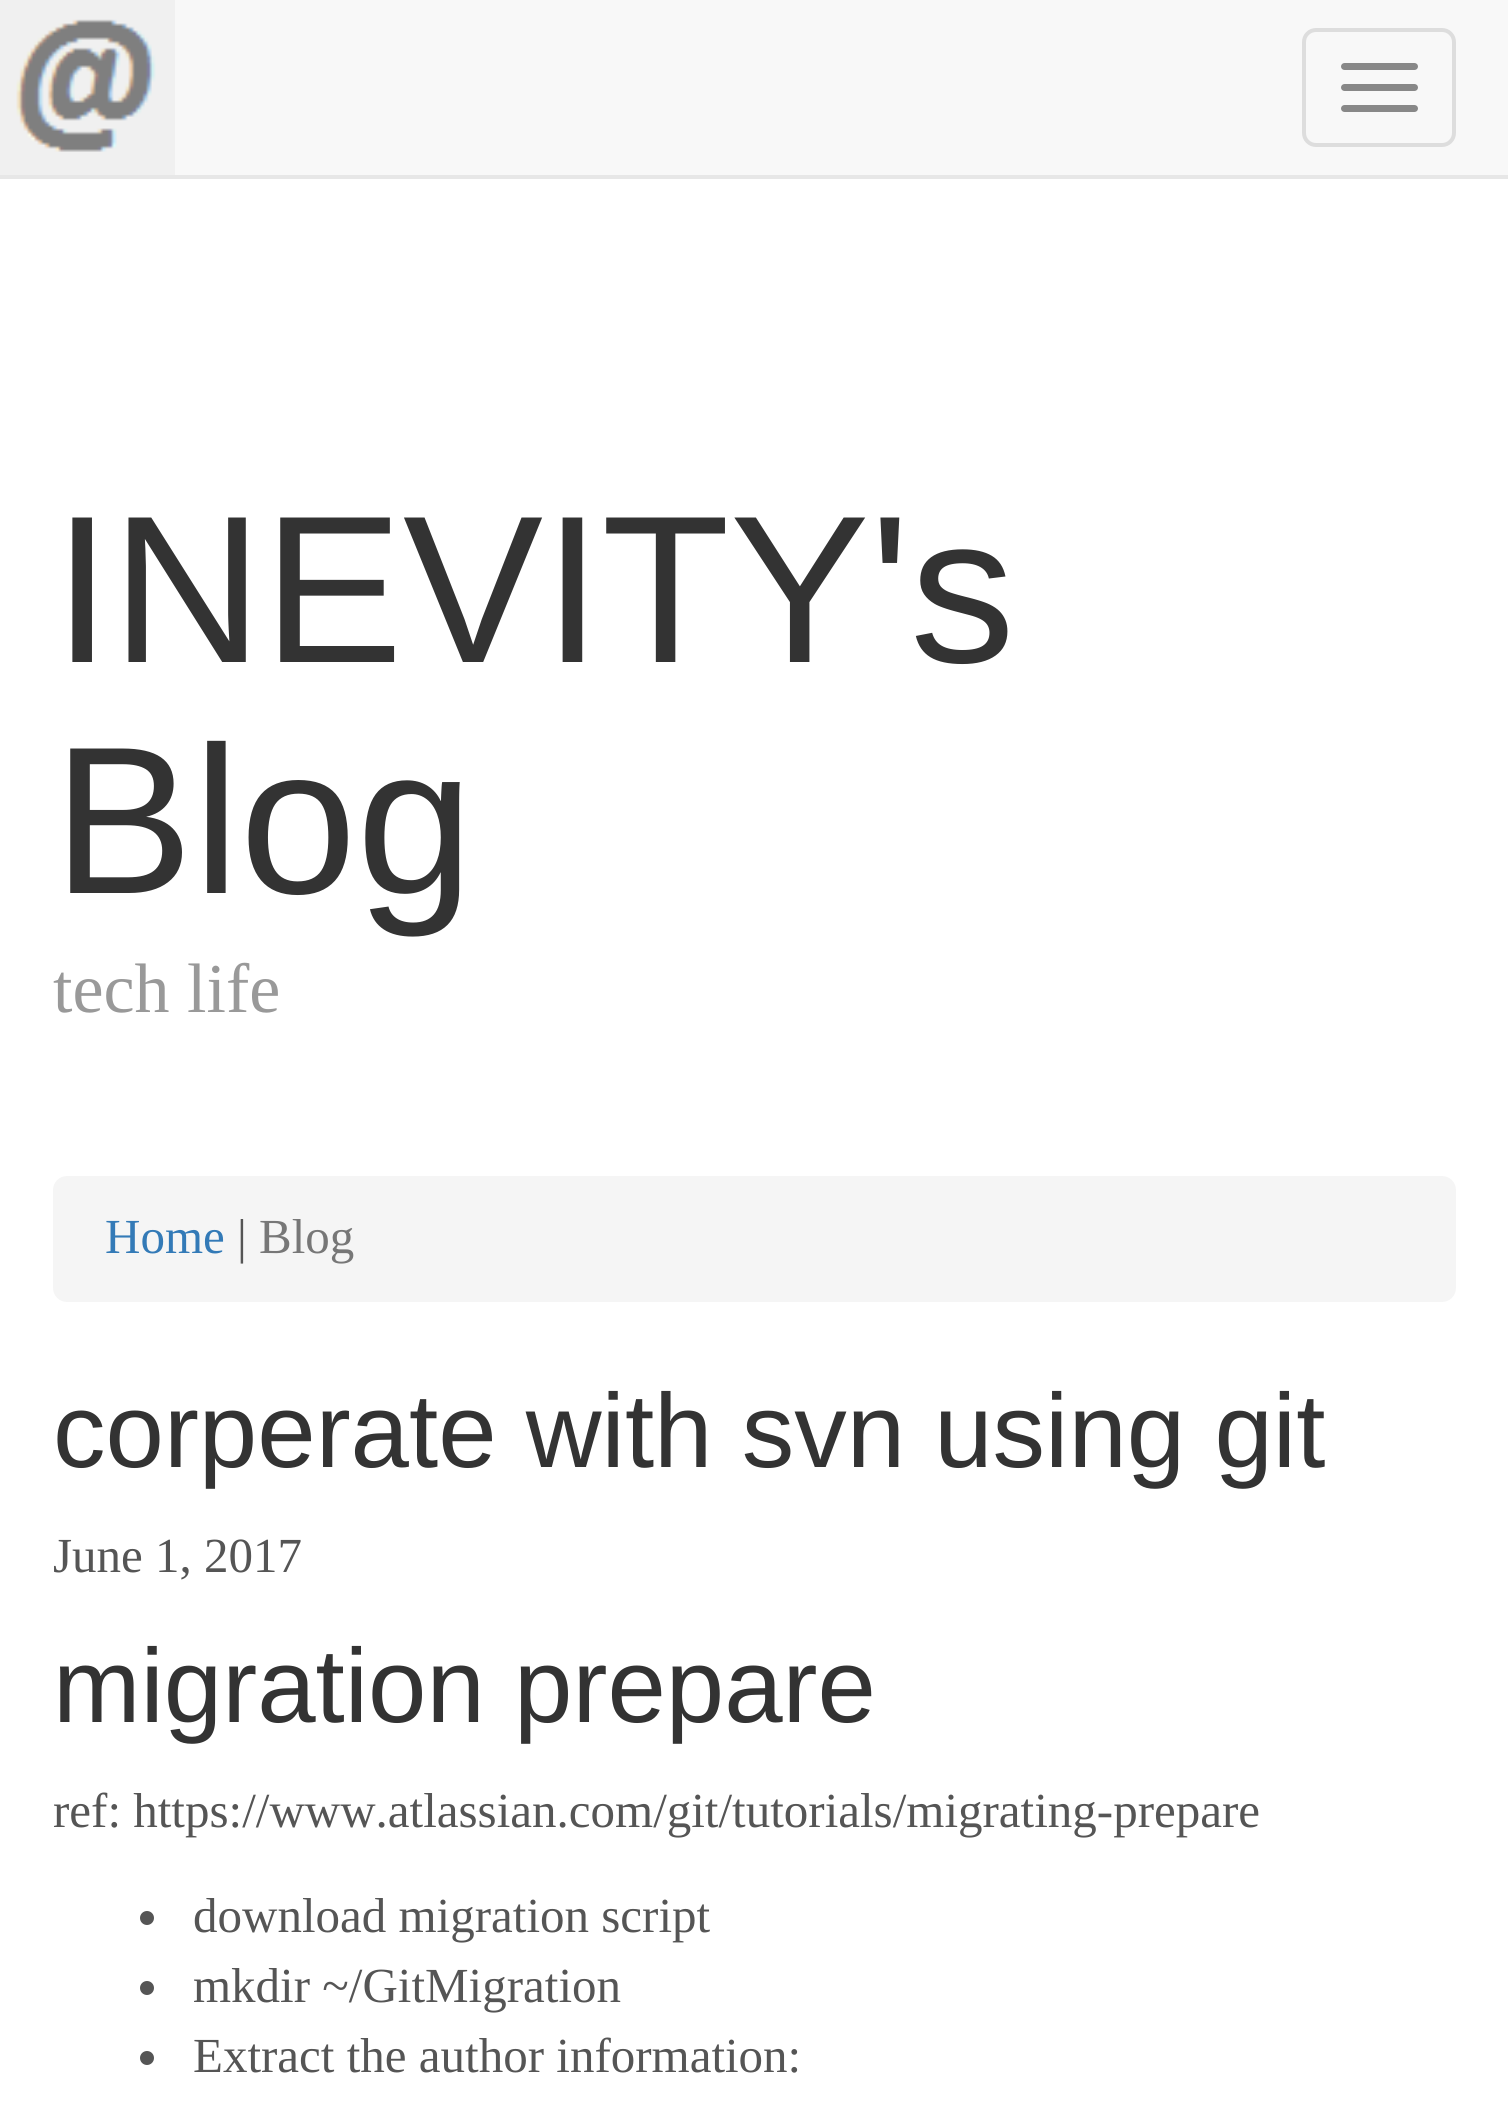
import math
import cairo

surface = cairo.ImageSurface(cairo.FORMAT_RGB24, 1508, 2119)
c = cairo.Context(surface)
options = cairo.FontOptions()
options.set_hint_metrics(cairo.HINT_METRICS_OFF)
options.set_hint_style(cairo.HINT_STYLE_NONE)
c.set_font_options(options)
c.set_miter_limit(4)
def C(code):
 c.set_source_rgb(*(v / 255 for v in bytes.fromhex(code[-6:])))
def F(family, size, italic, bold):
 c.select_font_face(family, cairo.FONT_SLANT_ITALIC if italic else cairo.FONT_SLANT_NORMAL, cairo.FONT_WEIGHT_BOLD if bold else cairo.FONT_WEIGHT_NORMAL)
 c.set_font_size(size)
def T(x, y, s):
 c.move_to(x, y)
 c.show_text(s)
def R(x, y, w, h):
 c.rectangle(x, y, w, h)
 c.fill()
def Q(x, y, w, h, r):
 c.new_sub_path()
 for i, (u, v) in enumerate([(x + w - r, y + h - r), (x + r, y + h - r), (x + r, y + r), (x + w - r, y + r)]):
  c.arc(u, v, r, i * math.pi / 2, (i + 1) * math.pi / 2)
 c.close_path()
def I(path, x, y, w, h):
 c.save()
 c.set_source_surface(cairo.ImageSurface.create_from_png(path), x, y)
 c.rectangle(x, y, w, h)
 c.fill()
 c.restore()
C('ffffff')
c.paint()
C('f8f8f8')
R(175,0,1333,175)
C('e7e7e7')
R(0,175,1508,4)
I('1.png',0,0,175,175)
Q(1304,30,150,115,12)
C('dddddd')
c.set_line_width(4)
c.stroke()
C('888888')
Q(1341,63,77,7,3.5)
c.fill()
Q(1341,84,77,7,3.5)
c.fill()
Q(1341,105,77,7,3.5)
c.fill()
F('Liberation Sans',210,0,0)
C('333333')
T(53,662,'INEVITY\'s')
T(53,893,'Blog')
F('Liberation Serif',70,0,0)
C('999999')
T(53,1012,'tech life')
C('f5f5f5')
Q(53,1176,1403,126,14)
c.fill()
F('Liberation Serif',49,0,0)
C('337ab7')
T(105,1253,'Home')
C('555555')
T(237,1253,'|')
C('777777')
T(259,1253,'Blog')
F('Liberation Sans',105,0,0)
C('333333')
T(53,1467,'corperate with svn using git')
F('Liberation Serif',49,0,0)
C('555555')
T(53,1572,'June 1, 2017')
F('Liberation Sans',105,0,0)
C('333333')
T(53,1722,'migration prepare')
F('Liberation Serif',49,0,0)
C('555555')
T(53,1827,'ref: https://www.atlassian.com/git/tutorials/migrating-prepare')
c.new_path()
c.arc(147,1918,7,0,2 * math.pi)
c.fill()
T(193,1932,'download migration script')
c.new_path()
c.arc(147,1988,7,0,2 * math.pi)
c.fill()
T(193,2002,'mkdir ~/GitMigration')
c.new_path()
c.arc(147,2058,7,0,2 * math.pi)
c.fill()
T(193,2072,'Extract the author information:')
surface.write_to_png('o.png')
